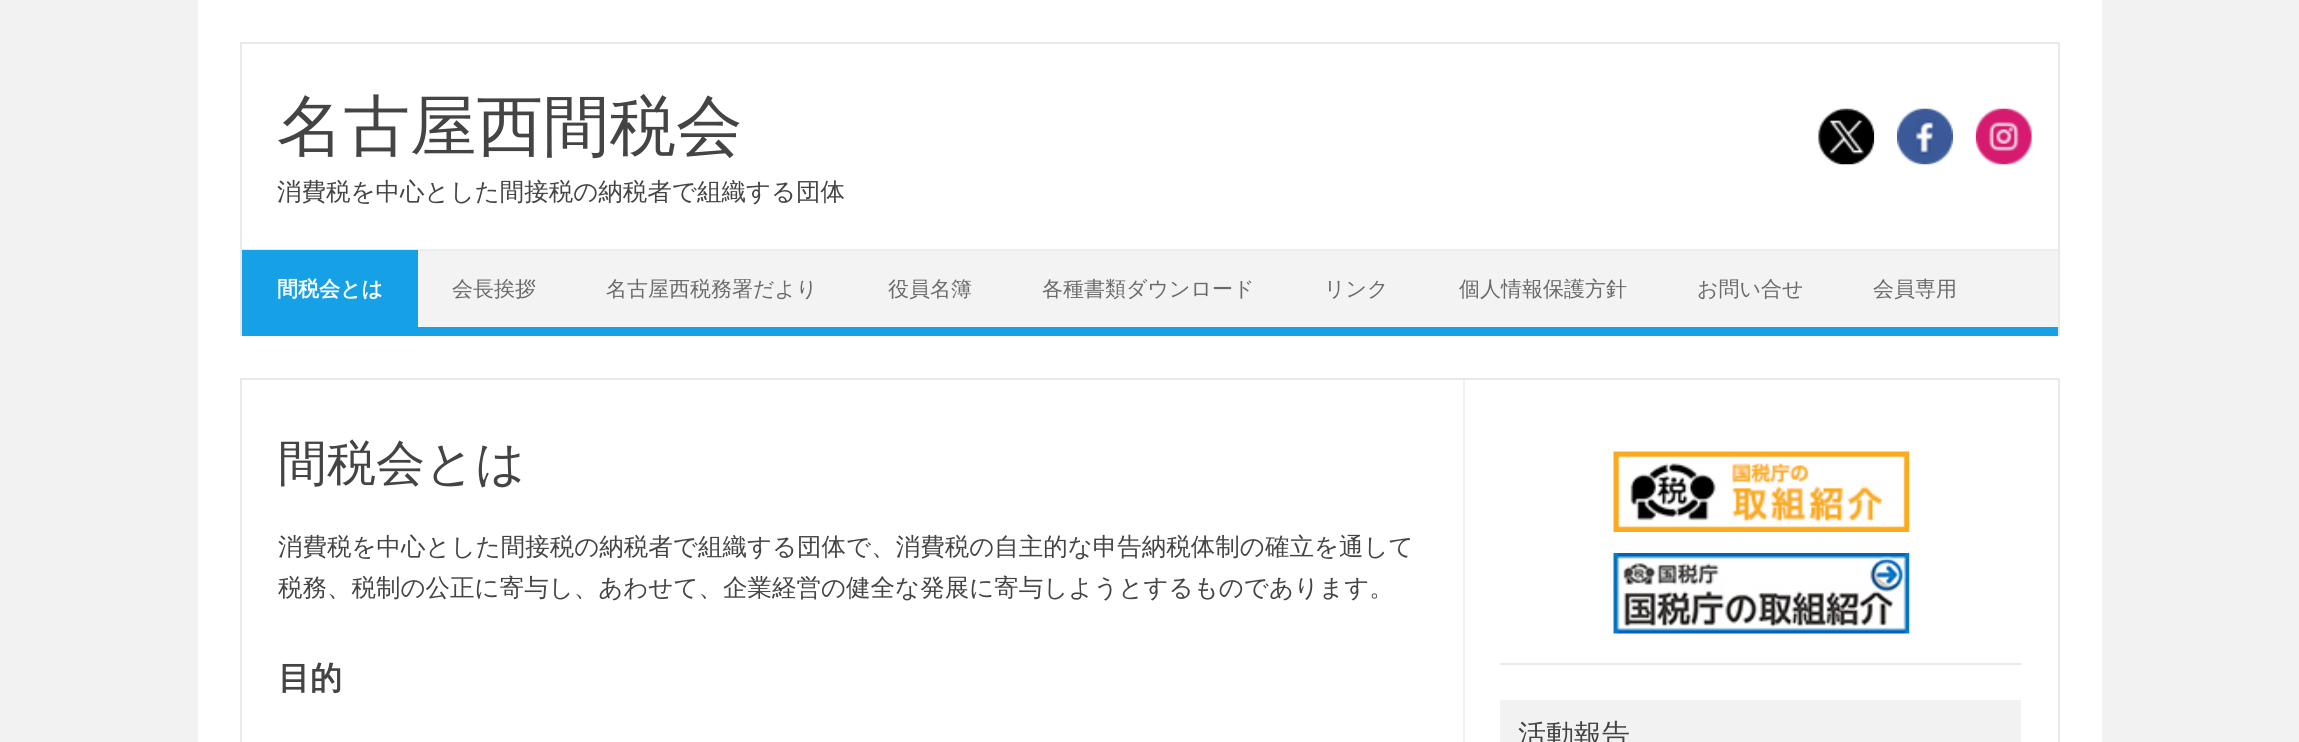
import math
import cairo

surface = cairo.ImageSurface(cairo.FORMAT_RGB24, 2299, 742)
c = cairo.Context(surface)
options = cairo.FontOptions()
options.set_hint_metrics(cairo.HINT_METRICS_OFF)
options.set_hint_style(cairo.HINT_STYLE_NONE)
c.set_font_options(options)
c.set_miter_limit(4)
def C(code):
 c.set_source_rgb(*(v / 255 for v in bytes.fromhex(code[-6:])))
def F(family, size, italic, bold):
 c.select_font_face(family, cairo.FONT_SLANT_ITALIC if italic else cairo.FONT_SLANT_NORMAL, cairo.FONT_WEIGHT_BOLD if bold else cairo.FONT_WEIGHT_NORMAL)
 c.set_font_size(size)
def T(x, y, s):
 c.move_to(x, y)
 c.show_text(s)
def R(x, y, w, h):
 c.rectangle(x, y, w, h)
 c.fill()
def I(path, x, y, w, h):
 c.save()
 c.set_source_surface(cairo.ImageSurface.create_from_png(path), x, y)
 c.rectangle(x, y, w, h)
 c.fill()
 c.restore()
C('f2f2f2')
c.paint()
C('ffffff')
R(198,0,1904,742)
C('e9e9e9')
R(240,42,1820,2)
R(2058,42,2,294)
R(240,42,2,294)
F('WenQuanYi Zen Hei Medium',66.5,0,0)
C('444444')
T(277,149,'名古屋西間税会')
F('WenQuanYi Zen Hei Medium',24.5,0,0)
T(277,200,'消費税を中心とした間接税の納税者で組織する団体')
I('1.png',1818,108,57,57)
I('2.png',1897,108,56,57)
I('3.png',1975,108,57,57)
C('f3f3f3')
R(418,251,1640,76)
C('ededed')
R(242,249,1816,2)
C('16a1e7')
R(242,327,1816,9)
R(242,250,176,77)
F('WenQuanYi Zen Hei',21,0,1)
C('ffffff')
T(277,296,'間税会とは')
F('WenQuanYi Zen Hei Medium',21,0,0)
C('6a6a6a')
T(452,296,'会長挨拶')
T(606,296,'名古屋西税務署だより')
T(888,296,'役員名簿')
T(1042,296,'各種書類ダウンロード')
T(1324,296,'リンク')
T(1459,296,'個人情報保護方針')
T(1697,296,'お問い合せ')
T(1873,296,'会員専用')
c.rectangle(241,379,1818,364)
C('e9e9e9')
c.stroke()
C('f1f1f1')
R(1463,380,2,362)
F('WenQuanYi Zen Hei Medium',49,0,0)
C('444444')
T(278,480,'間税会とは')
F('WenQuanYi Zen Hei Medium',24.5,0,0)
T(278,555,'消費税を中心とした間接税の納税者で組織する団体で、消費税の自主的な申告納税体制の確立を通して')
T(278,596,'税務、税制の公正に寄与し、あわせて、企業経営の健全な発展に寄与しようとするものであります。')
F('WenQuanYi Zen Hei',32,0,1)
T(278,689,'目的')
C('e9e9e9')
R(1500,663,521,2)
I('4.png',1613,451,297,81)
I('5.png',1613,553,297,81)
C('f2f2f2')
R(1500,700,521,42)
F('WenQuanYi Zen Hei Medium',28,0,0)
C('444444')
T(1518,744,'活動報告')
surface.write_to_png('o.png')
